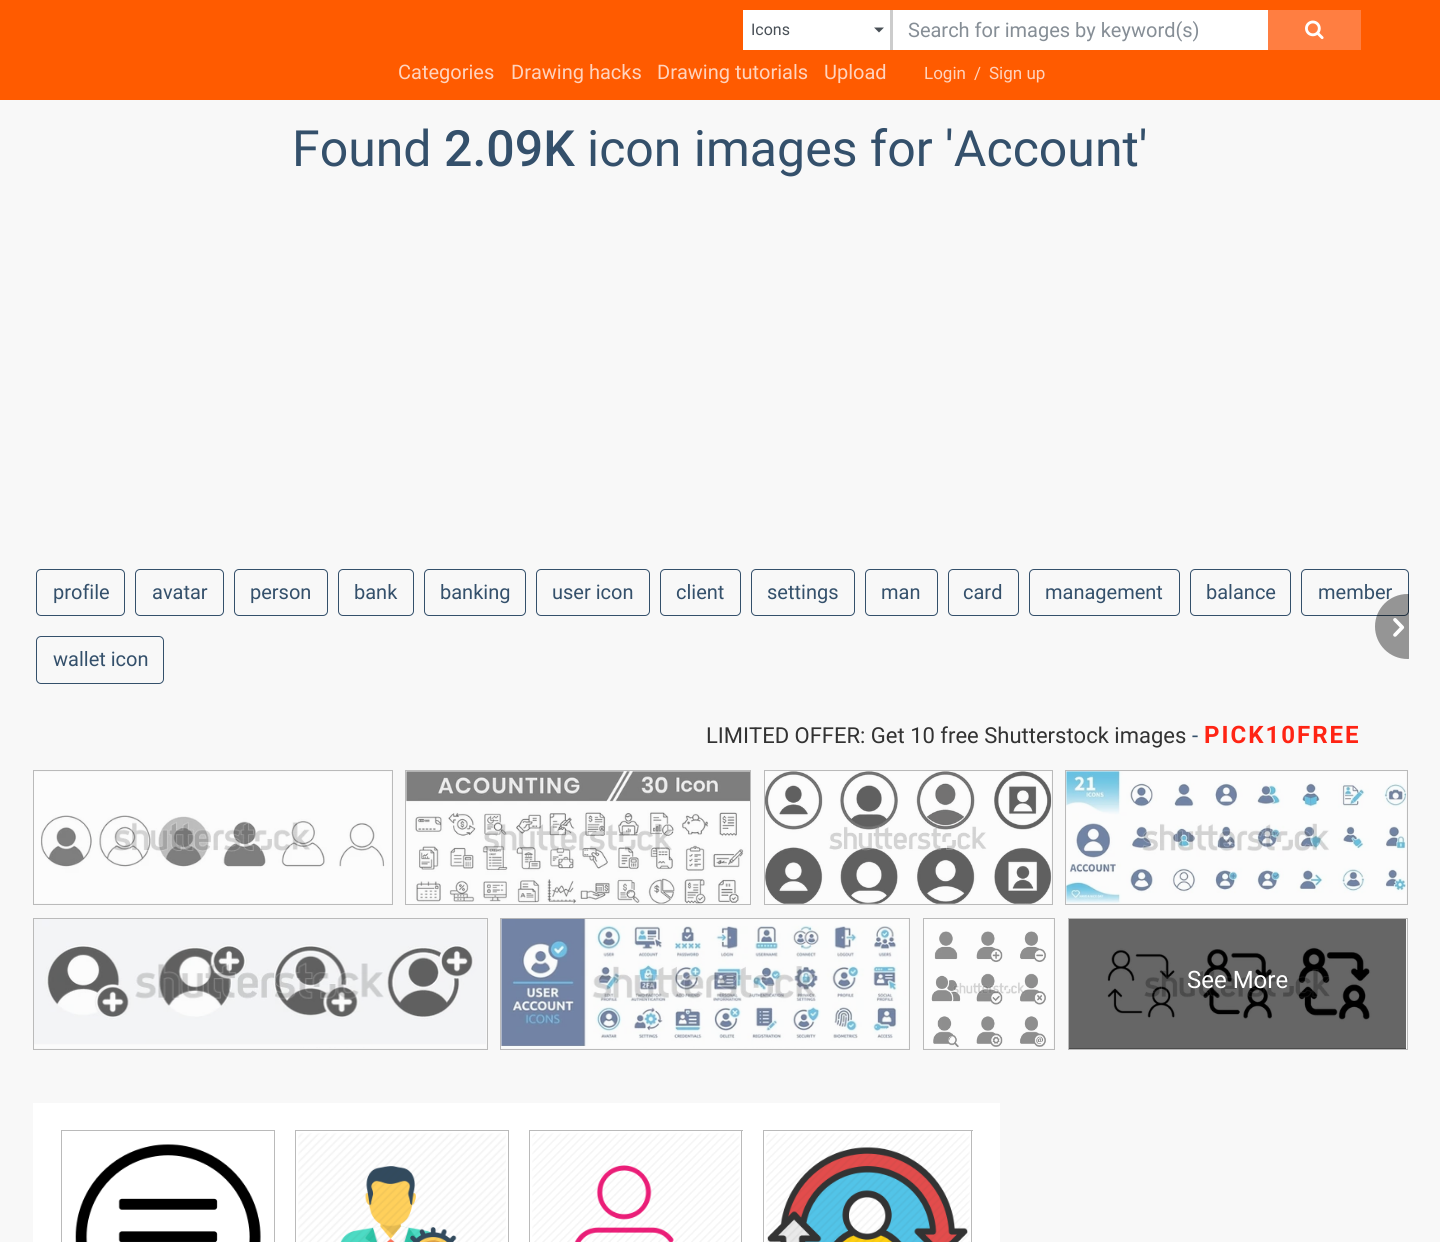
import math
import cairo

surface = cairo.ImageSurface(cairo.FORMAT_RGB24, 1440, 1242)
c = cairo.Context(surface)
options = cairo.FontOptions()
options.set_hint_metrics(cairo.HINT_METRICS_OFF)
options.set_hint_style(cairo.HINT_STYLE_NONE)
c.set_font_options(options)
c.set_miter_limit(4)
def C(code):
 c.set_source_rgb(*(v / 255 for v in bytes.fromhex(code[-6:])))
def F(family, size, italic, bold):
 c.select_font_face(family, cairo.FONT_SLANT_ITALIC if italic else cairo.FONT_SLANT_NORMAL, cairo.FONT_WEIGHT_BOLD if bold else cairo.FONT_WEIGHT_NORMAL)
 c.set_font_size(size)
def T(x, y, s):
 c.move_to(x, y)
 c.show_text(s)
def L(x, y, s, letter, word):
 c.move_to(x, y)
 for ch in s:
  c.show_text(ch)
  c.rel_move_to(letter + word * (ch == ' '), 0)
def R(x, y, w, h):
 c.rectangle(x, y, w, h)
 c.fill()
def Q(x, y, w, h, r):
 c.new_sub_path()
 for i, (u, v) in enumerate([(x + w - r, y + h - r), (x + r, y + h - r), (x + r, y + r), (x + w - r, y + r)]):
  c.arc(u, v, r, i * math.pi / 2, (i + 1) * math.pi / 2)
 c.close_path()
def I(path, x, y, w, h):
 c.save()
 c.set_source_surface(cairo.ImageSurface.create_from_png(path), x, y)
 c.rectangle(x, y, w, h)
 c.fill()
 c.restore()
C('f8f8f8')
c.paint()
C('ff5b00')
R(0,0,1440,100)
C('ffffff')
R(743,10,147,40)
C('cccccc')
R(890,10,3,40)
F('Roboto',16,0,0)
C('495057')
T(751,35,'Icons')
C('495056')
c.new_path()
c.move_to(874,27.5)
c.line_to(884,27.5)
c.line_to(879,32.5)
c.close_path()
c.fill()
C('ffffff')
R(893,10,375,40)
F('Roboto',20,0,0)
C('868e96')
T(908,37,'Search for images by keyword(s)')
C('ff7e41')
R(1268,10,93,40)
I('1.png',1305,20,19,20)
C('ffd3be')
T(398,79,'Categories')
T(511,79,'Drawing hacks')
T(657,79,'Drawing tutorials')
T(824,79,'Upload')
F('Roboto',17,0,0)
T(924,79,'Login')
T(974,79,'/')
T(989,79,'Sign up')
F('Roboto',50,0,0)
C('34506b')
T(292,166,'Found')
F('Roboto Medium',50,0,0)
T(444,166,'2.09K')
F('Roboto',50,0,0)
T(587,166,'icon images for \'Account\'')
Q(36.5,569.5,88,46,4.5)
c.set_line_width(1)
c.stroke()
F('Roboto',20,0,0)
T(53,599,'profile')
Q(135.5,569.5,88,46,4.5)
c.stroke()
T(152,599,'avatar')
Q(234.5,569.5,93,46,4.5)
c.stroke()
T(250,599,'person')
Q(338.5,569.5,75,46,4.5)
c.stroke()
T(354,599,'bank')
Q(424.5,569.5,101,46,4.5)
c.stroke()
T(440,599,'banking')
Q(536.5,569.5,113,46,4.5)
c.stroke()
T(552,599,'user icon')
Q(660.5,569.5,80,46,4.5)
c.stroke()
T(676,599,'client')
Q(751.5,569.5,103,46,4.5)
c.stroke()
T(767,599,'settings')
Q(865.5,569.5,72,46,4.5)
c.stroke()
T(881,599,'man')
Q(948.5,569.5,70,46,4.5)
c.stroke()
T(963,599,'card')
Q(1029.5,569.5,150,46,4.5)
c.stroke()
T(1045,599,'management')
Q(1190.5,569.5,100,46,4.5)
c.stroke()
T(1206,599,'balance')
Q(1301.5,569.5,107,46,4.5)
c.stroke()
T(1318,599,'member')
Q(36.5,636.5,127,47,4.5)
c.stroke()
T(53,666,'wallet icon')
c.save()
c.rectangle(31,556,1378,158)
c.clip()
c.set_source_rgba(0,0,0,0.4)
c.arc(1407.5,626.5,32.5,0,2 * math.pi)
c.fill()
c.restore()
I('2.png',1393,618,12,19)
F('Roboto',22,0,0)
C('323232')
T(706,743,'LIMITED OFFER: Get 10 free Shutterstock images')
C('34506b')
T(1192,743,'-')
F('Roboto',24,0,1)
C('ff2414')
L(1204,743,'PICK10FREE',2,0)
c.rectangle(33.5,770.5,359,134)
C('bababa')
c.stroke()
I('3.png',34,772,357,131)
c.rectangle(405.5,770.5,345,134)
c.stroke()
I('4.png',406,771,344,133)
c.rectangle(764.5,770.5,288,134)
c.stroke()
I('5.png',765,771,287,133)
c.rectangle(1065.5,770.5,342,134)
c.stroke()
I('6.png',1066,771,341,132)
c.rectangle(33.5,918.5,454,131)
c.stroke()
I('7.png',34,919,452,129)
c.rectangle(500.5,918.5,409,131)
c.stroke()
I('8.png',501,918,407,130)
c.rectangle(923.5,918.5,131,131)
c.stroke()
I('9.png',924,919,129,129)
c.rectangle(1068.5,918.5,339,131)
c.stroke()
C('000000')
R(1069,919,337,130)
I('10.png',1069,919,337,130)
F('Roboto',24,0,0)
C('ffffff')
T(1187,988,'See More')
R(33,1103,967,139)
C('bababa')
R(61,1130,214,1)
R(274,1130,1,112)
R(61,1130,1,112)
I('11.png',75,1144,186,98)
R(295,1130,214,1)
R(508,1130,1,112)
R(295,1130,1,112)
I('12.png',298,1133,208,109)
R(529,1130,214,1)
R(741,1130,1,112)
R(529,1130,1,112)
I('13.png',532,1133,208,109)
R(763,1130,210,1)
R(971,1130,1,112)
R(763,1130,1,112)
I('14.png',766,1133,204,109)
surface.write_to_png('o.png')
